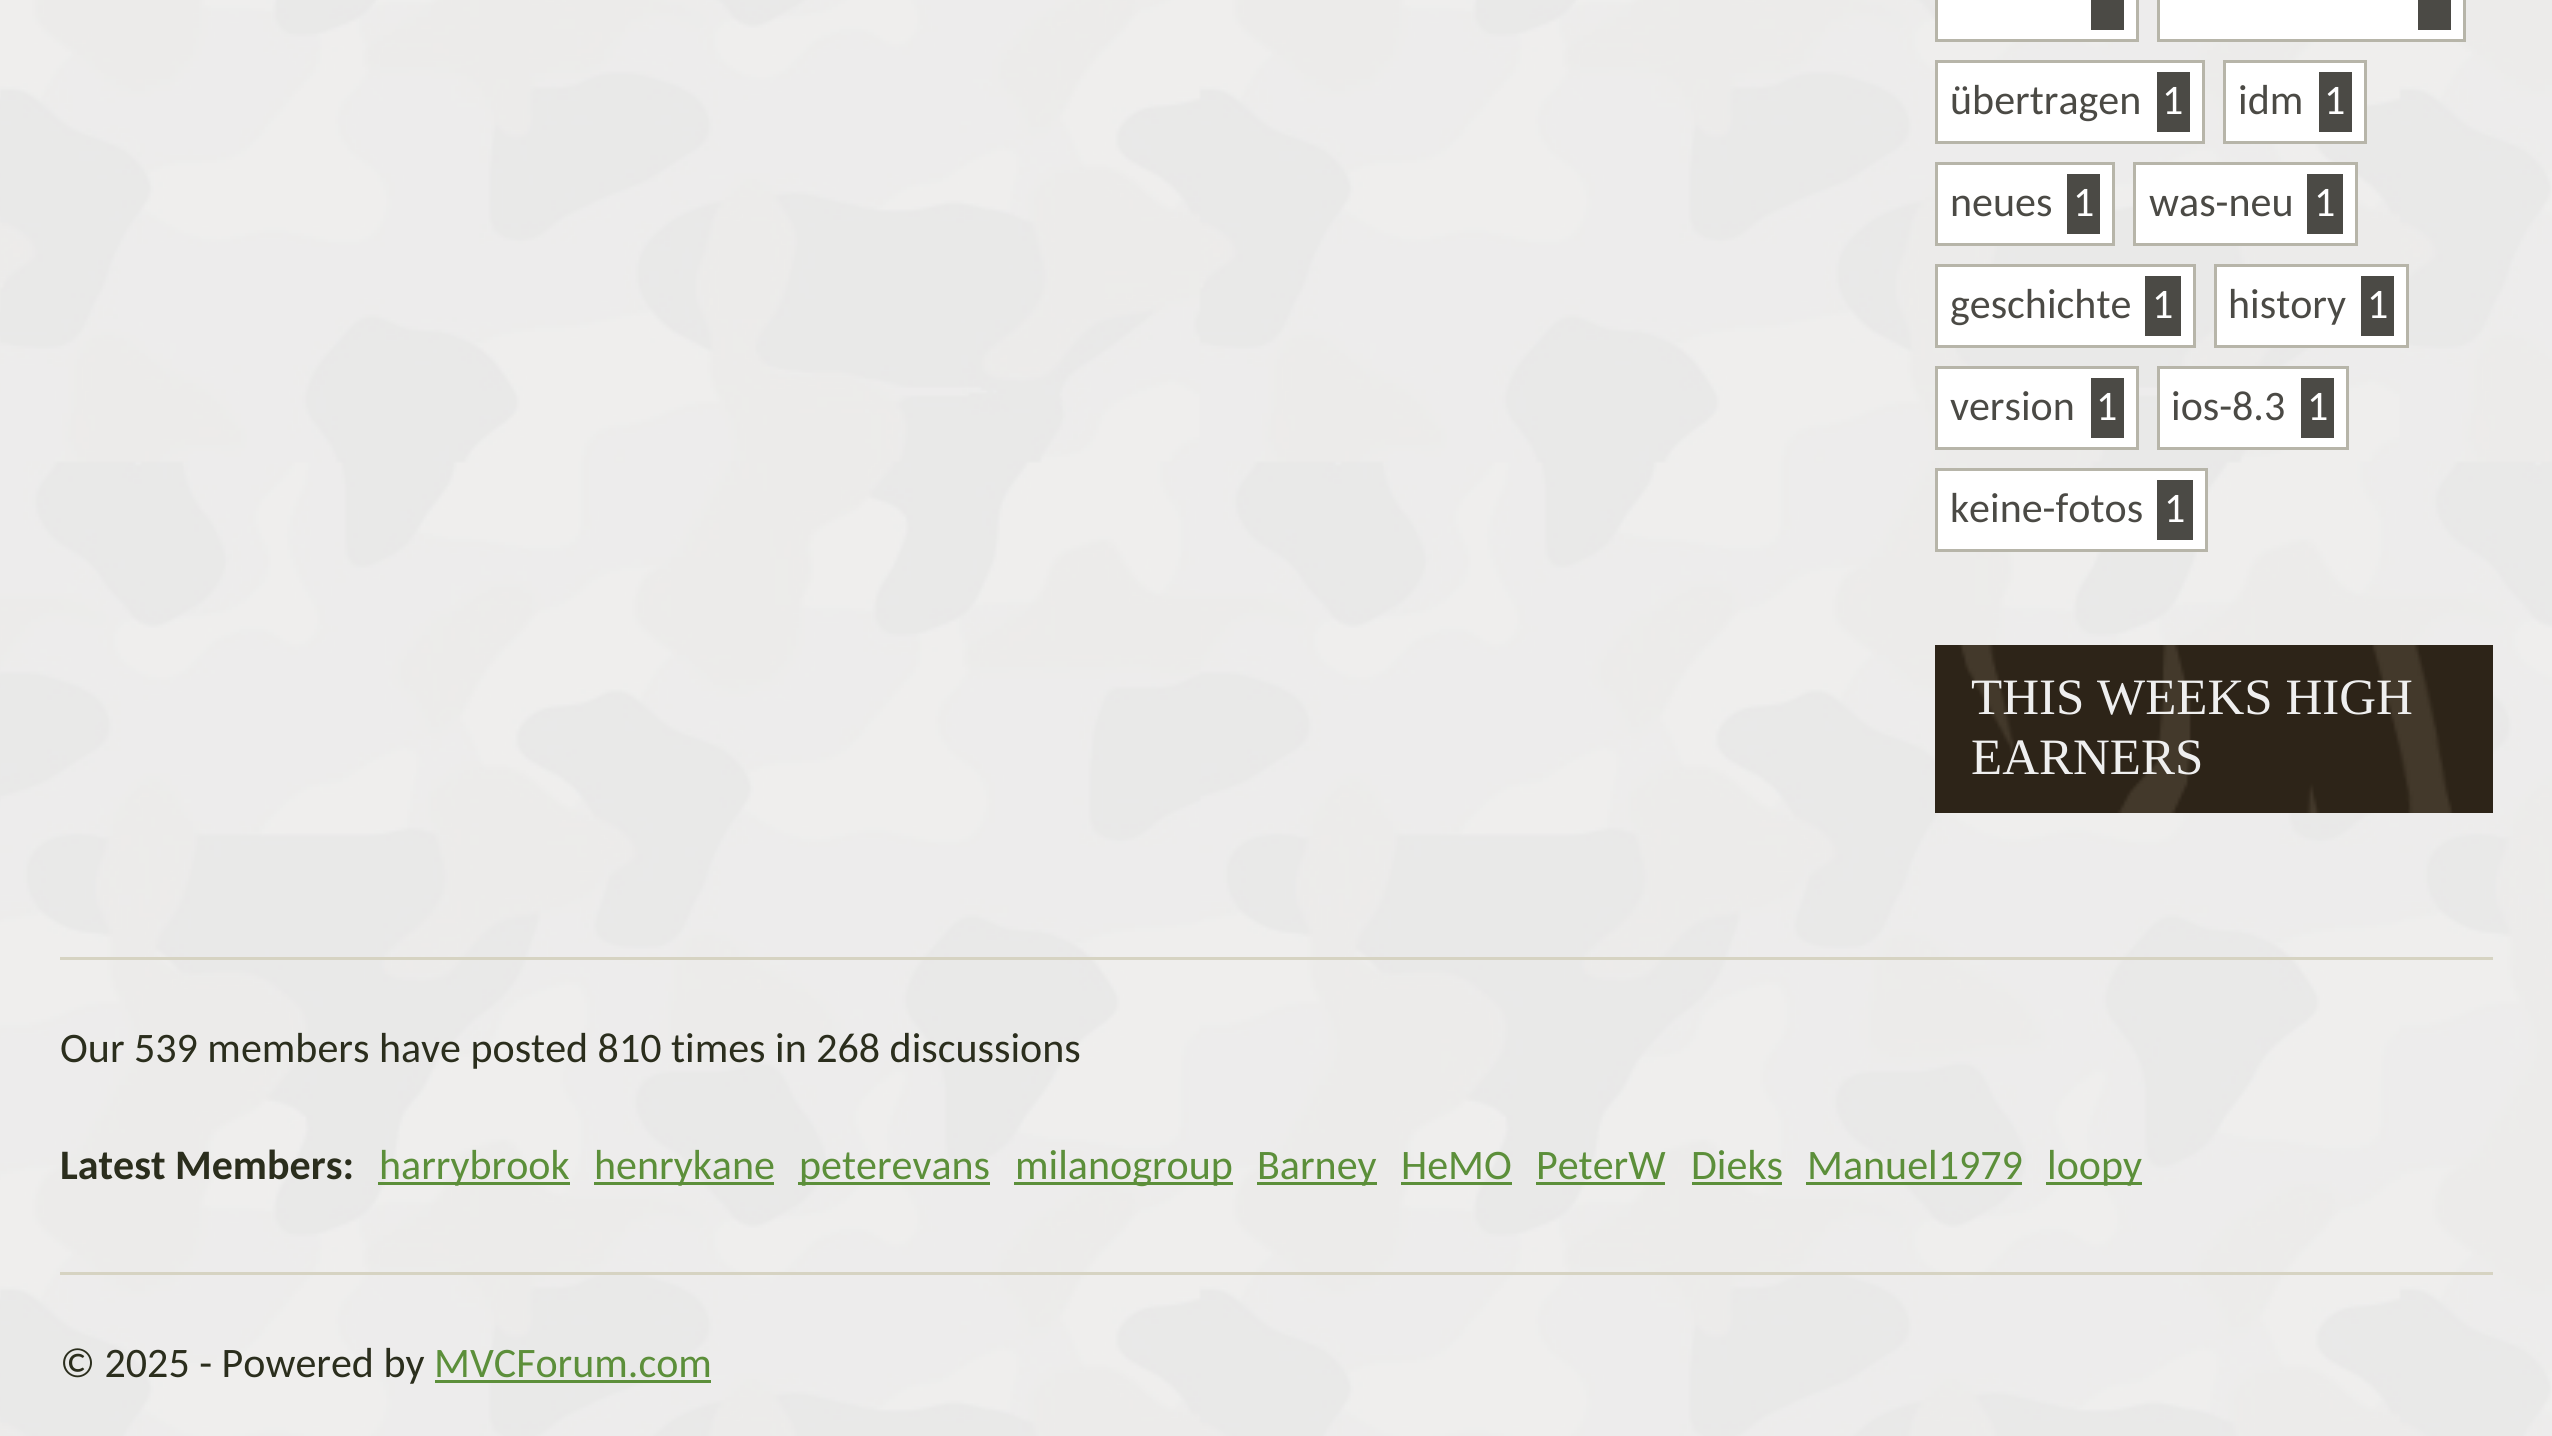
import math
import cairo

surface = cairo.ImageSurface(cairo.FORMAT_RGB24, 2552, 1436)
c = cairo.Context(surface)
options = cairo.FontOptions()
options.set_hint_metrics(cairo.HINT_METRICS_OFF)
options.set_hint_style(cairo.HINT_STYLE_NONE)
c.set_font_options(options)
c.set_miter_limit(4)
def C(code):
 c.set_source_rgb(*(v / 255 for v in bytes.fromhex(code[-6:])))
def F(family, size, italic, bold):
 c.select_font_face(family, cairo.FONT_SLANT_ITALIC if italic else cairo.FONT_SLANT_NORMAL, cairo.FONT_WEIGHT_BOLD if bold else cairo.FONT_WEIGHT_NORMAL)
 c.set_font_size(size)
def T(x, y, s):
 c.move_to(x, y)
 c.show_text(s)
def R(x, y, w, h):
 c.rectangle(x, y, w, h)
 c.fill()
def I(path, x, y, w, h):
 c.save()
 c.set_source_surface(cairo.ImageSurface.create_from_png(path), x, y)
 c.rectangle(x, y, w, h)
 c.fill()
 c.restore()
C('ffffff')
c.paint()
I('1.png',0,0,2552,1436)
C('ffffff')
c.rectangle(1936.5,-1.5,201,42)
c.fill_preserve()
C('b7b5a9')
c.set_line_width(3)
c.stroke()
C('4b4a45')
R(2091,0,33,30)
C('ffffff')
c.rectangle(2158.5,-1.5,306,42)
c.fill_preserve()
C('b7b5a9')
c.stroke()
C('4b4a45')
R(2418,0,33,30)
C('ffffff')
c.rectangle(1936.5,61.5,267,81)
c.fill_preserve()
C('b7b5a9')
c.stroke()
F('Carlito',42,0,0)
C('4b4a45')
T(1950,114,'übertragen')
R(2157,72,33,60)
C('ffffff')
T(2162,114,'1')
c.rectangle(2224.5,61.5,141,81)
c.fill_preserve()
C('b7b5a9')
c.stroke()
C('4b4a45')
T(2238,114,'idm')
R(2319,72,33,60)
C('ffffff')
T(2324,114,'1')
c.rectangle(1936.5,163.5,177,81)
c.fill_preserve()
C('b7b5a9')
c.stroke()
C('4b4a45')
T(1950,216,'neues')
R(2067,174,33,60)
C('ffffff')
T(2073,216,'1')
c.rectangle(2134.5,163.5,222,81)
c.fill_preserve()
C('b7b5a9')
c.stroke()
C('4b4a45')
T(2149,216,'was-neu')
R(2307,174,36,60)
C('ffffff')
T(2314,216,'1')
c.rectangle(1936.5,265.5,258,81)
c.fill_preserve()
C('b7b5a9')
c.stroke()
C('4b4a45')
T(1950,318,'geschichte')
R(2145,276,36,60)
C('ffffff')
T(2152,318,'1')
c.rectangle(2215.5,265.5,192,81)
c.fill_preserve()
C('b7b5a9')
c.stroke()
C('4b4a45')
T(2228,318,'history')
R(2361,276,33,60)
C('ffffff')
T(2367,318,'1')
c.rectangle(1936.5,367.5,201,81)
c.fill_preserve()
C('b7b5a9')
c.stroke()
C('4b4a45')
T(1950,420,'version')
R(2091,378,33,60)
C('ffffff')
T(2096,420,'1')
c.rectangle(2158.5,367.5,189,81)
c.fill_preserve()
C('b7b5a9')
c.stroke()
C('4b4a45')
T(2171,420,'ios-8.3')
R(2301,378,33,60)
C('ffffff')
T(2307,420,'1')
c.rectangle(1936.5,469.5,270,81)
c.fill_preserve()
C('b7b5a9')
c.stroke()
C('4b4a45')
T(1950,522,'keine-fotos')
R(2157,480,36,60)
C('ffffff')
T(2164,522,'1')
I('2.png',1935,645,558,168)
F('Liberation Serif',51,0,0)
C('efefef')
T(1971,714,'THIS WEEKS HIGH')
T(1971,774,'EARNERS')
C('d6d3c2')
R(60,957,2433,3)
F('Carlito',42,0,0)
C('2b2e1d')
T(60,1062,'Our 539 members have posted 810 times in 268 discussions')
F('Carlito',42,0,1)
T(60,1179,'Latest Members:')
C('5c8f3a')
R(378,1182,192,3)
F('Carlito',42,0,0)
T(379,1179,'harrybrook')
R(594,1182,180,3)
T(594,1179,'henrykane')
R(798,1182,192,3)
T(799,1179,'peterevans')
R(1014,1182,219,3)
T(1015,1179,'milanogroup')
R(1257,1182,120,3)
T(1257,1179,'Barney')
T(1401,1179,'HeMO')
R(1401,1182,111,3)
T(1536,1179,'PeterW')
R(1536,1182,129,3)
T(1691,1179,'Dieks')
R(1692,1182,90,3)
T(1807,1179,'Manuel1979')
R(1806,1182,216,3)
R(2046,1182,96,3)
T(2047,1179,'loopy')
C('d6d3c2')
R(60,1272,2433,3)
C('2b2e1d')
T(60,1377,'© 2025 - Powered by')
C('5c8f3a')
T(434,1377,'MVCForum.com')
R(435,1380,276,3)
surface.write_to_png('o.png')
